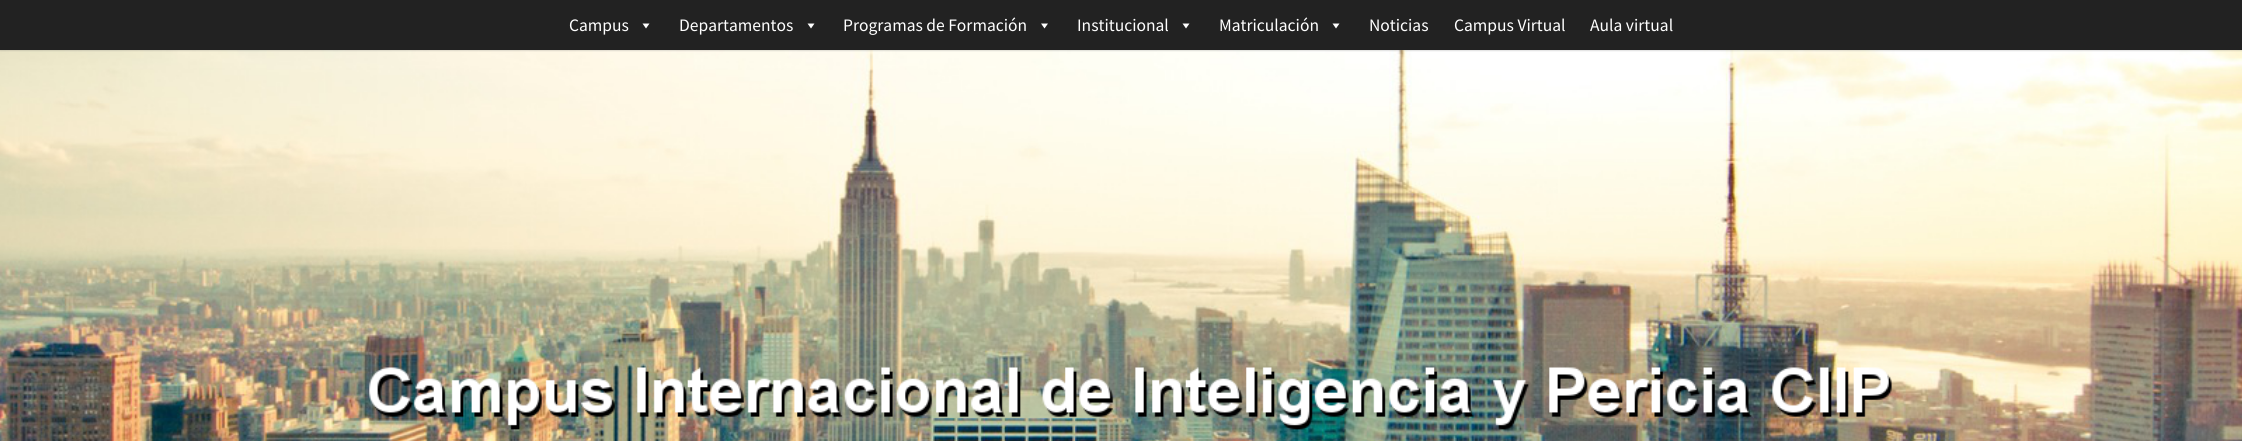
import math
import cairo

surface = cairo.ImageSurface(cairo.FORMAT_RGB24, 2242, 441)
c = cairo.Context(surface)
options = cairo.FontOptions()
options.set_hint_metrics(cairo.HINT_METRICS_OFF)
options.set_hint_style(cairo.HINT_STYLE_NONE)
c.set_font_options(options)
c.set_miter_limit(4)
def C(code):
 c.set_source_rgb(*(v / 255 for v in bytes.fromhex(code[-6:])))
def F(family, size, italic, bold):
 c.select_font_face(family, cairo.FONT_SLANT_ITALIC if italic else cairo.FONT_SLANT_NORMAL, cairo.FONT_WEIGHT_BOLD if bold else cairo.FONT_WEIGHT_NORMAL)
 c.set_font_size(size)
def T(x, y, s):
 c.move_to(x, y)
 c.show_text(s)
def R(x, y, w, h):
 c.rectangle(x, y, w, h)
 c.fill()
def Q(x, y, w, h, r):
 c.new_sub_path()
 for i, (u, v) in enumerate([(x + w - r, y + h - r), (x + r, y + h - r), (x + r, y + r), (x + w - r, y + r)]):
  c.arc(u, v, r, i * math.pi / 2, (i + 1) * math.pi / 2)
 c.close_path()
def S(x, y, w, h, r, blur, alpha):
 c.push_group_with_content(cairo.CONTENT_ALPHA)
 c.set_operator(cairo.OPERATOR_SOURCE)
 for i in range(15, -16, -2):
  e = blur * i / 6
  if min(w, h) + 2 * e > 0:
   c.set_source_rgba(0, 0, 0, alpha * math.erfc((i - 1) / 8.5) / 2)
   Q(x - e, y - e, w + 2 * e, h + 2 * e, max(0, min(r + e + blur * .6, min(w, h) / 2 + e)))
   c.fill()
 c.mask(c.pop_group())
def I(path, x, y, w, h):
 c.save()
 c.set_source_surface(cairo.ImageSurface.create_from_png(path), x, y)
 c.rectangle(x, y, w, h)
 c.fill()
 c.restore()
C('ffffff')
c.paint()
I('1.png',0,50,2242,391)
C('646464')
S(0,1,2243,50,0,.5,.2)
C('222222')
R(0,0,2242,50)
F('Source Sans Pro',17.5,0,0)
C('ffffff')
T(569,31,'Campus')
c.new_path()
c.move_to(649.5,23.5)
c.line_to(646,28.5)
c.line_to(642.5,23.5)
c.close_path()
c.fill()
T(679,31,'Departamentos')
c.new_path()
c.move_to(814.5,23.5)
c.line_to(811,28.5)
c.line_to(807.5,23.5)
c.close_path()
c.fill()
T(843,31,'Programas de Formación')
c.new_path()
c.move_to(1048,23.5)
c.line_to(1044.5,28.5)
c.line_to(1041,23.5)
c.close_path()
c.fill()
T(1077,31,'Institucional')
c.new_path()
c.move_to(1189.5,23.5)
c.line_to(1186,28.5)
c.line_to(1182.5,23.5)
c.close_path()
c.fill()
T(1219,31,'Matriculación')
c.new_path()
c.move_to(1339.5,23.5)
c.line_to(1336,28.5)
c.line_to(1332.5,23.5)
c.close_path()
c.fill()
T(1369,31,'Noticias')
T(1454,31,'Campus Virtual')
T(1590,31,'Aula virtual')
surface.write_to_png('o.png')
